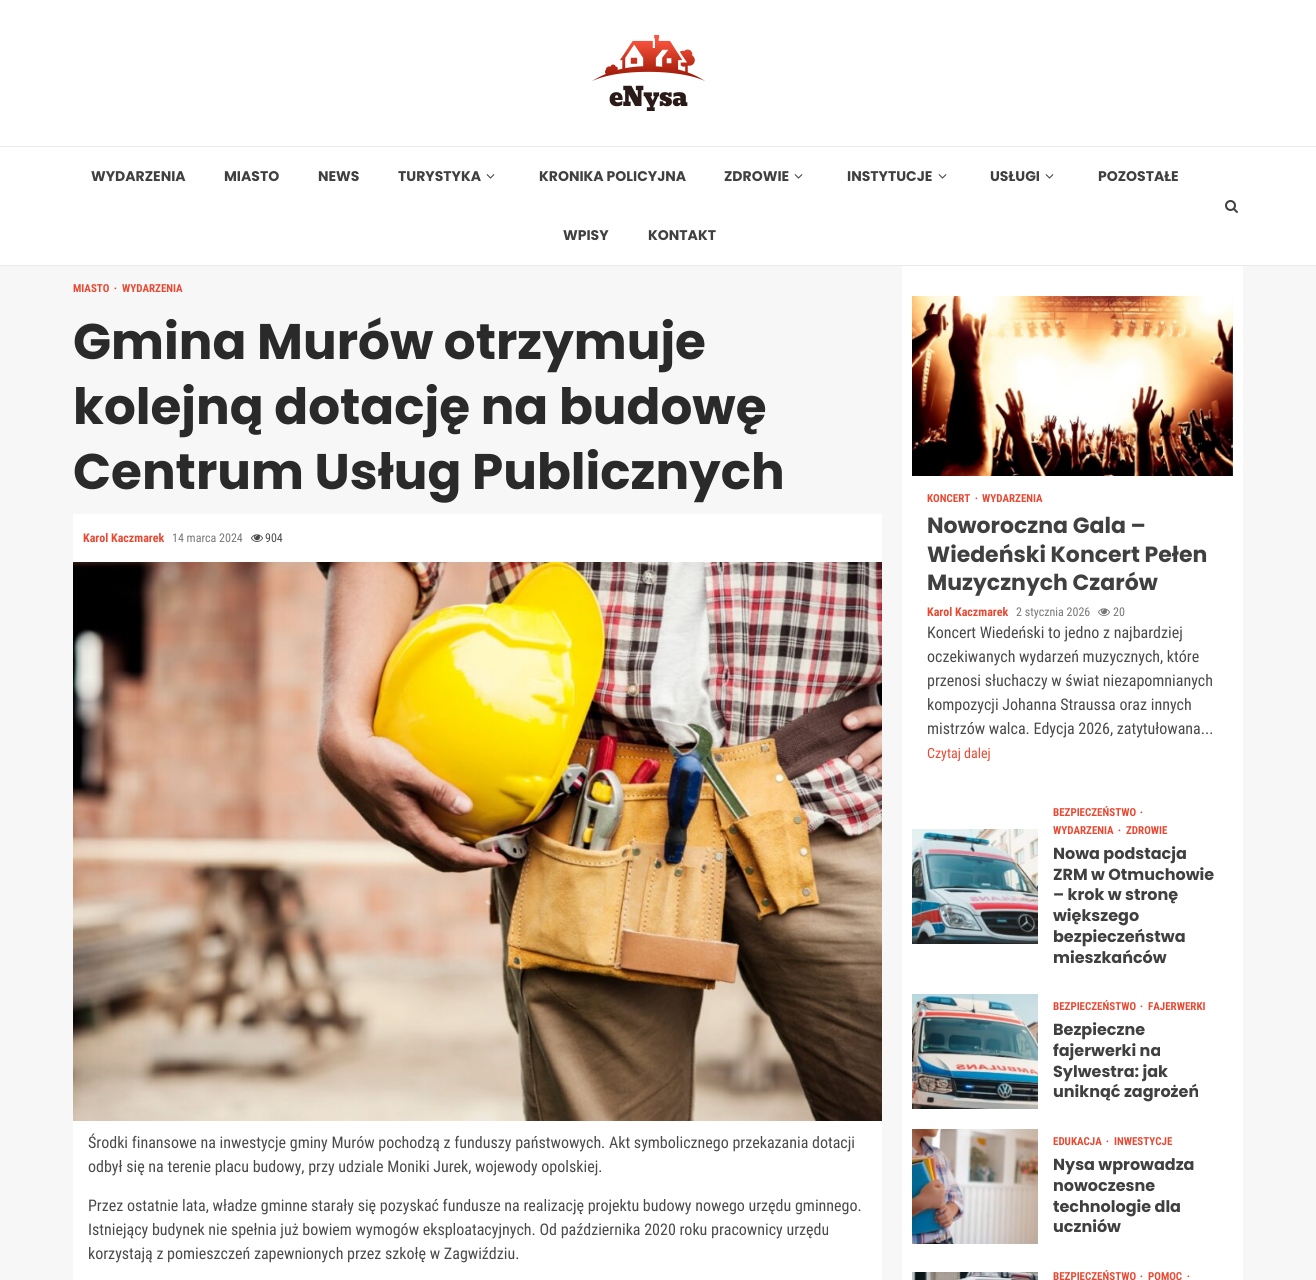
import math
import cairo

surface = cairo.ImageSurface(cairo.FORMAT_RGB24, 1316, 1280)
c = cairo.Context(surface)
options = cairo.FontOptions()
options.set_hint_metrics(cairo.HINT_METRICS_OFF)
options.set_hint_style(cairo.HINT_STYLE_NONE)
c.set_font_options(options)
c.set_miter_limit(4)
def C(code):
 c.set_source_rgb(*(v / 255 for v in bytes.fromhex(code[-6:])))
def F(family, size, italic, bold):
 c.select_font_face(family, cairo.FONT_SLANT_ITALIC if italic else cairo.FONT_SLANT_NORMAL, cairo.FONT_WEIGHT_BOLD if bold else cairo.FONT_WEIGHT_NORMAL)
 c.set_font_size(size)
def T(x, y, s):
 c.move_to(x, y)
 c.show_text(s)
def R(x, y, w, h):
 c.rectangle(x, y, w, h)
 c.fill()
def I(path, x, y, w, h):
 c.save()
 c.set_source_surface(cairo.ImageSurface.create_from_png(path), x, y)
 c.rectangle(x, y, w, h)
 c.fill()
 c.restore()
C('f7f7f7')
c.paint()
C('ffffff')
R(0,0,1316,265)
I('1.png',592,35,113,76)
C('eaeaea')
R(0,146,1316,1)
R(0,265,1316,1)
F('Poppins',14,0,1)
C('404040')
T(91,181,'WYDARZENIA')
T(224,181,'MIASTO')
T(318,181,'NEWS')
T(398,181,'TURYSTYKA')
I('2.png',486,174,9,5)
T(539,181,'KRONIKA POLICYJNA')
T(724,181,'ZDROWIE')
I('2.png',794,174,9,5)
T(847,181,'INSTYTUCJE')
I('2.png',938,174,9,5)
T(990,181,'USŁUGI')
I('2.png',1045,174,9,5)
T(1098,181,'POZOSTAŁE')
T(563,240,'WPISY')
T(648,240,'KONTAKT')
I('3.png',1225,200,13,13)
F('Roboto Condensed',11,0,1)
C('e84933')
T(73,292,'MIASTO')
F('Liberation Serif',11,0,1)
T(114,292,'∙')
F('Roboto Condensed',11,0,1)
T(122,292,'WYDARZENIA')
F('Poppins',50,0,1)
C('2a2a2a')
T(73,359,'Gmina Murów otrzymuje')
T(73,424,'kolejną dotację na budowę')
T(73,489,'Centrum Usług Publicznych')
C('ffffff')
R(73,514,809,48)
F('Roboto Condensed',12,0,1)
C('e84933')
T(83,542,'Karol Kaczmarek')
F('Roboto Condensed',12,0,0)
C('777777')
T(172,542,'14 marca 2024')
I('4.png',251,534,12,8)
C('4a4a4a')
T(265,542,'904')
I('5.png',73,562,809,559)
C('ffffff')
R(73,1121,809,159)
F('Roboto Condensed',16,0,0)
C('4a4a4a')
T(88,1148,'Środki finansowe na inwestycje gminy Murów pochodzą z funduszy państwowych. Akt symbolicznego przekazania dotacji')
T(88,1172,'odbył się na terenie placu budowy, przy udziale Moniki Jurek, wojewody opolskiej.')
T(88,1211,'Przez ostatnie lata, władze gminne starały się pozyskać fundusze na realizację projektu budowy nowego urzędu gminnego.')
T(88,1235,'Istniejący budynek nie spełnia już bowiem wymogów eksploatacyjnych. Od października 2020 roku pracownicy urzędu')
T(88,1259,'korzystają z pomieszczeń zapewnionych przez szkołę w Zagwiździu.')
C('ffffff')
R(902,266,341,1014)
I('6.png',912,296,321,180)
F('Roboto Condensed',11,0,1)
C('e84933')
T(927,502,'KONCERT')
F('Liberation Serif',11,0,1)
T(975,502,'∙')
F('Roboto Condensed',11,0,1)
T(982,502,'WYDARZENIA')
F('Poppins',22,0,1)
C('404040')
T(927,533,'Noworoczna Gala –')
T(927,562,'Wiedeński Koncert Pełen')
T(927,590,'Muzycznych Czarów')
F('Roboto Condensed',12,0,1)
C('e84933')
T(927,616,'Karol Kaczmarek')
F('Roboto Condensed',12,0,0)
C('777777')
T(1016,616,'2 stycznia 2026')
I('7.png',1098,608,12,8)
T(1113,616,'20')
F('Roboto Condensed',16,0,0)
C('4a4a4a')
T(927,638,'Koncert Wiedeński to jedno z najbardziej')
T(927,662,'oczekiwanych wydarzeń muzycznych, które')
T(927,686,'przenosi słuchaczy w świat niezapomnianych')
T(927,710,'kompozycji Johanna Straussa oraz innych')
T(927,734,'mistrzów walca. Edycja 2026, zatytułowana...')
F('Roboto Condensed',14,0,0)
C('e84933')
T(927,758,'Czytaj dalej')
I('8.png',912,829,126,115)
F('Roboto Condensed',11,0,1)
T(1053,816,'BEZPIECZEŃSTWO')
F('Liberation Serif',11,0,1)
T(1140,816,'∙')
F('Roboto Condensed',11,0,1)
T(1053,834,'WYDARZENIA')
F('Liberation Serif',11,0,1)
T(1118,834,'∙')
F('Roboto Condensed',11,0,1)
T(1126,834,'ZDROWIE')
F('Poppins',16,0,1)
C('404040')
T(1053,859,'Nowa podstacja')
T(1053,880,'ZRM w Otmuchowie')
T(1053,900,'– krok w stronę')
T(1053,921,'większego')
T(1053,942,'bezpieczeństwa')
T(1053,963,'mieszkańców')
I('9.png',912,994,126,115)
F('Roboto Condensed',11,0,1)
C('e84933')
T(1053,1010,'BEZPIECZEŃSTWO')
F('Liberation Serif',11,0,1)
T(1140,1010,'∙')
F('Roboto Condensed',11,0,1)
T(1148,1010,'FAJERWERKI')
F('Poppins',16,0,1)
C('404040')
T(1053,1035,'Bezpieczne')
T(1053,1056,'fajerwerki na')
T(1053,1077,'Sylwestra: jak')
T(1053,1097,'uniknąć zagrożeń')
I('10.png',912,1129,126,115)
F('Roboto Condensed',11,0,1)
C('e84933')
T(1053,1145,'EDUKACJA')
F('Liberation Serif',11,0,1)
T(1106,1145,'∙')
F('Roboto Condensed',11,0,1)
T(1114,1145,'INWESTYCJE')
F('Poppins',16,0,1)
C('404040')
T(1053,1170,'Nysa wprowadza')
T(1053,1191,'nowoczesne')
T(1053,1212,'technologie dla')
T(1053,1232,'uczniów')
I('11.png',912,1272,126,8)
F('Roboto Condensed',11,0,1)
C('e84933')
T(1053,1280,'BEZPIECZEŃSTWO')
F('Liberation Serif',11,0,1)
T(1140,1280,'∙')
F('Roboto Condensed',11,0,1)
T(1148,1280,'POMOC')
F('Liberation Serif',11,0,1)
T(1187,1280,'∙')
surface.write_to_png('o.png')
